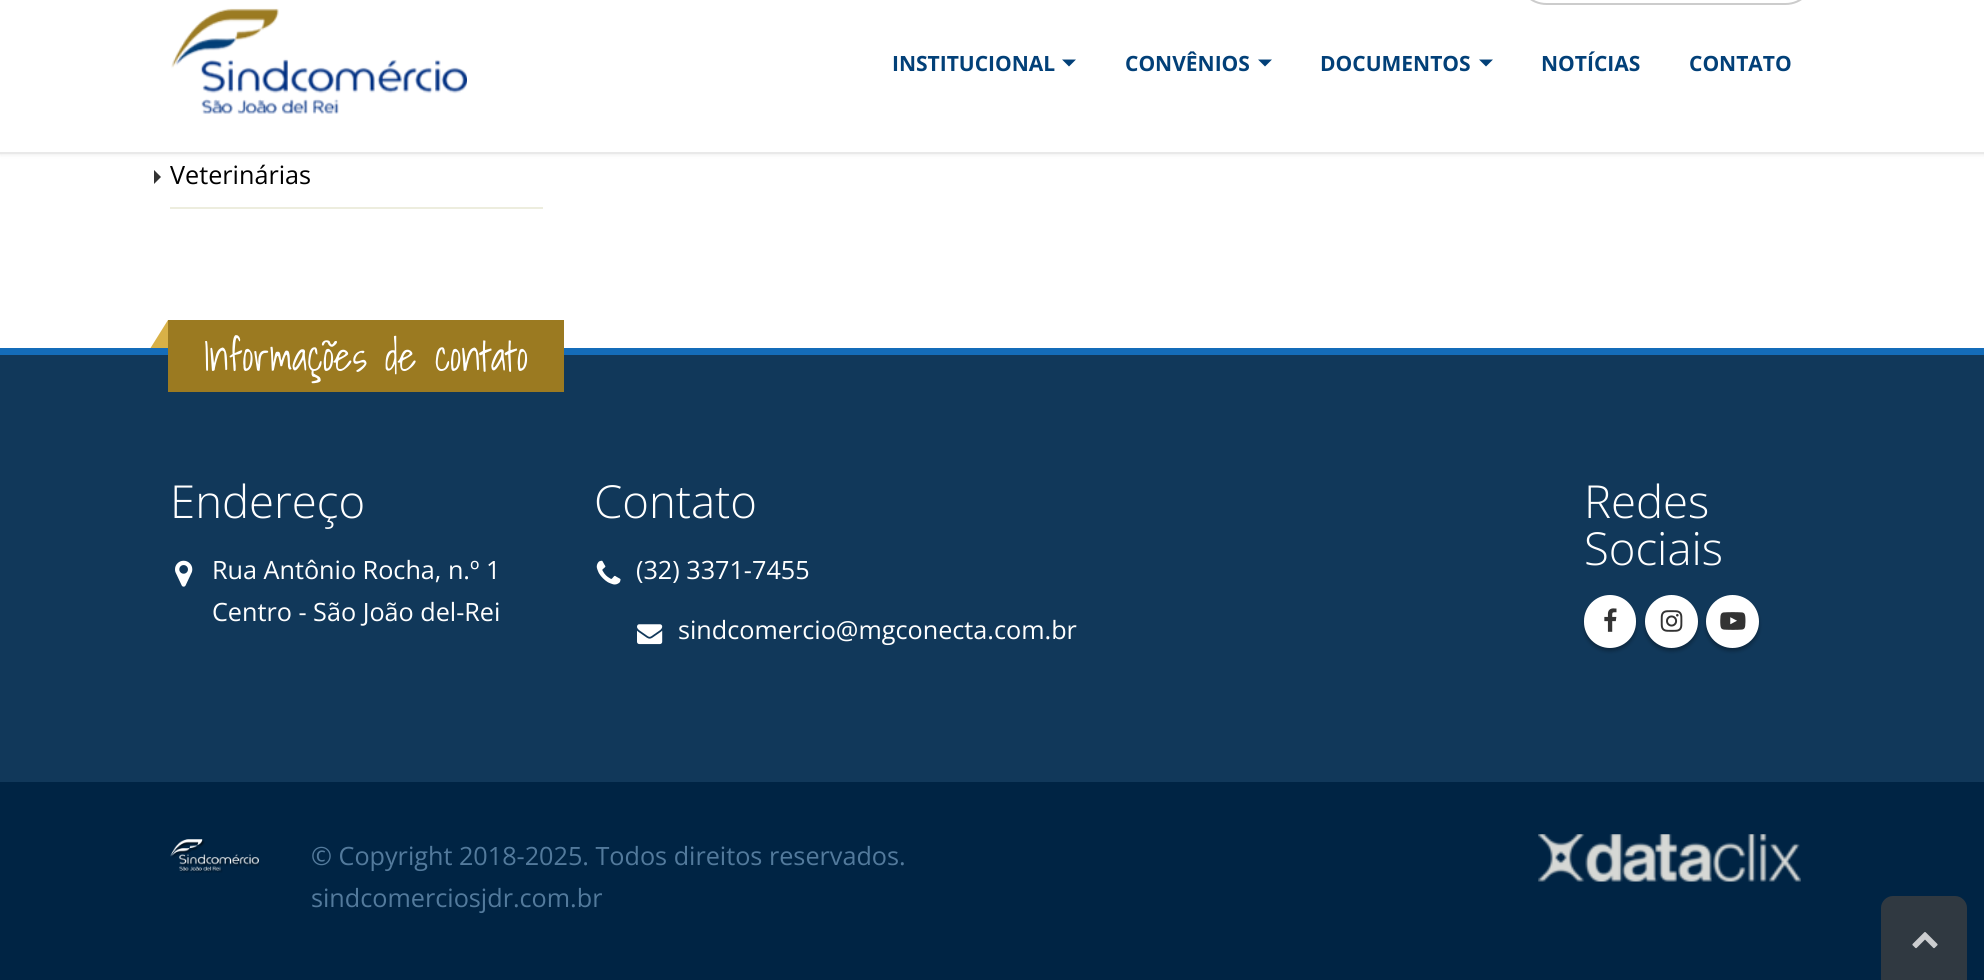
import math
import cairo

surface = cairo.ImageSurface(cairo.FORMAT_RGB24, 1984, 980)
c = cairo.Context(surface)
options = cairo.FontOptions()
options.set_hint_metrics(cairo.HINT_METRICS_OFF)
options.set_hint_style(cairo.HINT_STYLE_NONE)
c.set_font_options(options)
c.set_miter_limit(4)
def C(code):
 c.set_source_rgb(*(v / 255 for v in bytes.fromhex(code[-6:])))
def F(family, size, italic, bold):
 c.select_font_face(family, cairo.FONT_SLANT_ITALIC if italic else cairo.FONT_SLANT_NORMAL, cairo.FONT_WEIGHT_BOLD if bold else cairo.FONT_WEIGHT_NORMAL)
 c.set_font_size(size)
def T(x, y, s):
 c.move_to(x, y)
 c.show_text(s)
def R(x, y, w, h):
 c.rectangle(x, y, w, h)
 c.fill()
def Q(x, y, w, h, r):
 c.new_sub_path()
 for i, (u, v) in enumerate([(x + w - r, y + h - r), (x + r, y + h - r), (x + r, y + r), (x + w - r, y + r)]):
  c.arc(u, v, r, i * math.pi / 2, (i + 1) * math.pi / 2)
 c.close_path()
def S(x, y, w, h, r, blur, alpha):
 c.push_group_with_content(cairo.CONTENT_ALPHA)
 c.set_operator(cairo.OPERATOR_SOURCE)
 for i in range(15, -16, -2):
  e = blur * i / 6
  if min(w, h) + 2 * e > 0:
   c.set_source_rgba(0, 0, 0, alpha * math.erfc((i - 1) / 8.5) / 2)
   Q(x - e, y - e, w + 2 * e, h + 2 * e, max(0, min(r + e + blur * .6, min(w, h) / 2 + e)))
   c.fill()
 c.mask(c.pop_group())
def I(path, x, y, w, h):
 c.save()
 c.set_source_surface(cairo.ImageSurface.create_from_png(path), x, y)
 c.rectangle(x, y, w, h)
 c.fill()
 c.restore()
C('ffffff')
c.paint()
C('000000')
S(0,-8,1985,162,0,2.5,.1)
C('ffffff')
R(0,0,1984,152)
C('e9e9e9')
R(0,152,1984,2)
I('1.png',171,8,296,106)
Q(1518,-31,296,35,28.5)
C('cccccc')
c.stroke()
F('Open Sans',21,0,1)
C('024078')
T(892,71,'INSTITUCIONAL')
c.new_path()
c.move_to(1062,59.5)
c.line_to(1076,59.5)
c.line_to(1069,66.5)
c.close_path()
c.fill()
T(1125,71,'CONVÊNIOS')
c.new_path()
c.move_to(1258,59.5)
c.line_to(1272,59.5)
c.line_to(1265,66.5)
c.close_path()
c.fill()
T(1320,71,'DOCUMENTOS')
c.new_path()
c.move_to(1479,59.5)
c.line_to(1493,59.5)
c.line_to(1486,66.5)
c.close_path()
c.fill()
T(1541,71,'NOTÍCIAS')
T(1689,71,'CONTATO')
C('ededde')
R(170,207,373,2)
C('333333')
c.new_path()
c.move_to(154,184)
c.line_to(154,170)
c.line_to(161,177)
c.close_path()
c.fill()
F('Open Sans',25.2,0,0)
C('000000')
T(170,184,'Veterinárias')
C('11385a')
R(0,355,1984,427)
C('146cb9')
R(0,348,1984,7)
C('9b7a21')
R(168,320,396,72)
C('d8b147')
c.new_path()
c.move_to(168,320)
c.line_to(168,348)
c.line_to(150.5,348)
c.close_path()
c.fill()
F('Shadows Into Light Light',40.25,0,0)
C('ffffff')
T(203,371,'Informações de contato')
F('Open Sans Light',45.5,0,0)
T(170,518,'Endereço')
I('2.png',175,560,18,27)
F('Open Sans',25.2,0,0)
T(212,579,'Rua Antônio Rocha, n.º 1')
T(212,621,'Centro - São João del-Rei')
F('Open Sans Light',45.5,0,0)
T(594,518,'Contato')
I('3.png',596,560,25,25)
F('Open Sans',25.2,0,0)
T(636,579,'(32) 3371-7455')
I('4.png',637,624,26,21)
T(678,639,'sindcomercio@mgconecta.com.br')
F('Open Sans Light',45.5,0,0)
T(1584,518,'Redes')
T(1584,565,'Sociais')
C('000000')
S(1584,599,52,52,26,2,.3)
C('ffffff')
Q(1584,595,52,53,26)
c.fill()
I('5.png',1604,608,13,24)
C('000000')
S(1645,599,53,52,26,2,.3)
C('ffffff')
c.arc(1671.5,621.5,26.5,0,2 * math.pi)
c.fill()
I('6.png',1660,610,23,22)
C('000000')
S(1706,599,53,52,26,2,.3)
C('ffffff')
c.arc(1732.5,621.5,26.5,0,2 * math.pi)
c.fill()
I('7.png',1720,612,26,18)
C('002444')
R(0,782,1984,198)
I('8.png',170,839,89,34)
F('Open Sans',25.2,0,0)
C('537a9c')
T(311,865,'© Copyright 2018-2025. Todos direitos reservados.')
T(311,907,'sindcomerciosjdr.com.br')
I('9.png',1538,834,263,48)
C('303941')
c.new_path()
c.move_to(1893,896)
c.line_to(1955,896)
c.curve_to(1961.5,896,1967,901.5,1967,908)
c.line_to(1967,980)
c.line_to(1881,980)
c.line_to(1881,908)
c.curve_to(1881,901.5,1886.5,896,1893,896)
c.close_path()
c.fill()
I('10.png',1912,932,26,17)
surface.write_to_png('o.png')
